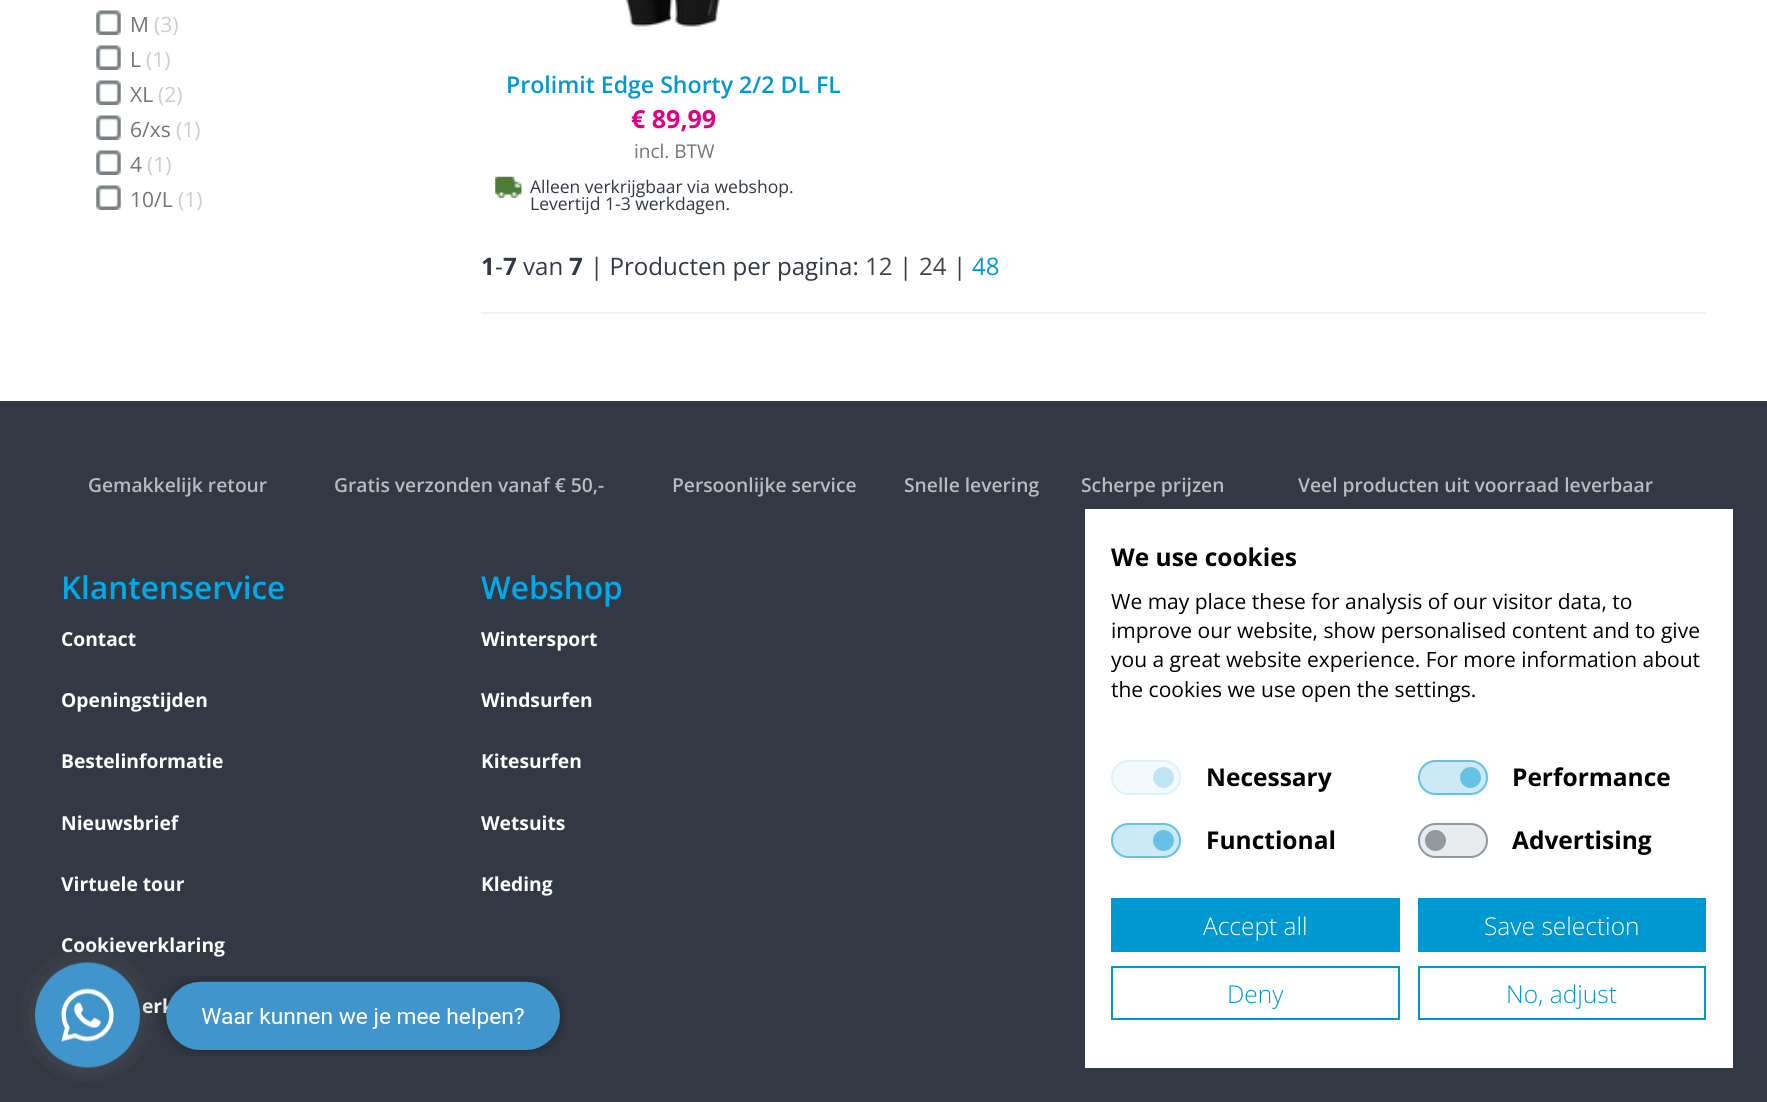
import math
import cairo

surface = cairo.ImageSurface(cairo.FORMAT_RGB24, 1767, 1102)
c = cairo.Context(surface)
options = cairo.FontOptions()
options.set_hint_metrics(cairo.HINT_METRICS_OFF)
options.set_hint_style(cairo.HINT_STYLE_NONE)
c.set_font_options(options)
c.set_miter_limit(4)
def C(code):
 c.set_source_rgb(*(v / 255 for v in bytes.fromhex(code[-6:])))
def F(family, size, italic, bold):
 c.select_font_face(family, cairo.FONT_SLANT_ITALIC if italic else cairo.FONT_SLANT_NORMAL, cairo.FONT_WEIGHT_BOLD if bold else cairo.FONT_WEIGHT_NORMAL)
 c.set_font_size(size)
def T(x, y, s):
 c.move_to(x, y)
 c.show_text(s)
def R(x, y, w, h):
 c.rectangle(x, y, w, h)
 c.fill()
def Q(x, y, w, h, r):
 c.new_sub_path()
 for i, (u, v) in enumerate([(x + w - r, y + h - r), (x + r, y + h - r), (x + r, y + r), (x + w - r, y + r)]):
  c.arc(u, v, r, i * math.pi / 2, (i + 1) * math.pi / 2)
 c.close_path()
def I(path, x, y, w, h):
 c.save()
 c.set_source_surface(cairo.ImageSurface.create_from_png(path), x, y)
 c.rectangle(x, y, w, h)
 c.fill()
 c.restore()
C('ffffff')
c.paint()
I('1.png',96,10,25,25)
F('Open Sans',21,0,0)
C('747474')
T(130,32,'M')
C('cccccc')
T(154,32,'(3)')
I('1.png',96,45,25,25)
C('747474')
T(130,67,'L')
C('cccccc')
T(146,67,'(1)')
I('1.png',96,80,25,25)
C('747474')
T(130,102,'XL')
C('cccccc')
T(158,102,'(2)')
I('1.png',96,115,25,25)
C('747474')
T(130,137,'6/xs')
C('cccccc')
T(176,137,'(1)')
I('1.png',96,150,25,25)
C('747474')
T(130,172,'4')
C('cccccc')
T(147,172,'(1)')
I('1.png',96,185,25,25)
C('747474')
T(130,207,'10/L')
C('cccccc')
T(178,207,'(1)')
I('2.png',626,0,94,27)
F('Open Sans SemiBold',23.1,0,0)
C('0098d1')
T(506,93,'Prolimit Edge Shorty 2/2 DL FL')
F('Open Sans',25,0,1)
C('e00085')
T(631,128,'€ 89,99')
F('Open Sans',19,0,0)
C('747474')
T(634,158,'incl. BTW')
I('3.png',495,176,27,22)
F('Open Sans',17.5,0,0)
C('323944')
T(530,193,'Alleen verkrijgbaar via webshop.')
T(530,210,'Levertijd 1-3 werkdagen.')
F('Open Sans',24.1,0,1)
T(481,275,'1')
F('Open Sans',24.1,0,0)
T(495,275,'-')
F('Open Sans',24.1,0,1)
T(503,275,'7')
F('Open Sans',24.1,0,0)
T(523,275,'van')
F('Open Sans',24.1,0,1)
T(569,275,'7')
F('Open Sans',24.1,0,0)
T(590,275,'| Producten per pagina:')
C('454545')
T(865,275,'12')
C('323944')
T(899,275,'|')
C('454545')
T(919,275,'24')
C('323944')
T(953,275,'|')
C('0098d1')
T(972,275,'48')
C('f2f2f2')
R(481,312,1225,2)
C('323944')
R(0,401,1767,701)
F('Open Sans SemiBold',19.25,0,0)
C('b7bbc2')
T(88,492,'Gemakkelijk retour')
T(334,492,'Gratis verzonden vanaf € 50,-')
T(672,492,'Persoonlijke service')
T(904,492,'Snelle levering')
T(1081,492,'Scherpe prijzen')
T(1298,492,'Veel producten uit voorraad leverbaar')
F('Open Sans SemiBold',31.5,0,0)
C('00a9e9')
T(61,599,'Klantenservice')
F('Open Sans',19.25,0,1)
C('ffffff')
T(61,646,'Contact')
T(61,707,'Openingstijden')
T(61,768,'Bestelinformatie')
T(61,830,'Nieuwsbrief')
T(61,891,'Virtuele tour')
T(61,952,'Cookieverklaring')
T(142,1013,'erk')
F('Open Sans SemiBold',31.5,0,0)
C('00a9e9')
T(481,599,'Webshop')
F('Open Sans',19.25,0,1)
C('ffffff')
T(481,646,'Wintersport')
T(481,707,'Windsurfen')
T(481,768,'Kitesurfen')
T(481,830,'Wetsuits')
T(481,891,'Kleding')
I('4.png',20,946,136,136)
I('5.png',157,976,408,80)
R(1085,509,648,559)
F('Open Sans',24.5,0,1)
C('000000')
T(1111,566,'We use cookies')
F('Open Sans',21,0,0)
T(1111,609,'We may place these for analysis of our visitor data, to')
T(1111,638,'improve our website, show personalised content and to give')
T(1111,667,'you a great website experience. For more information about')
T(1111,697,'the cookies we use open the settings.')
C('f2fafd')
Q(1111,760,70,35,17.5)
c.fill()
C('bfe5f4')
c.arc(1163.5,777.5,10.5,0,2 * math.pi)
c.fill()
Q(1112,761,68,33,16.5)
C('dff2f9')
c.stroke()
F('Open Sans',24.5,0,1)
C('000000')
T(1206,786,'Necessary')
C('cceaf6')
Q(1418,760,70,35,17.5)
c.fill()
C('66c1e4')
c.arc(1470.5,777.5,10.5,0,2 * math.pi)
c.fill()
Q(1419,761,68,33,16.5)
c.set_source_rgba(0,0.596,0.82,0.5)
c.stroke()
C('000000')
T(1512,786,'Performance')
C('cceaf6')
Q(1111,823,70,35,17.5)
c.fill()
C('66c1e4')
c.arc(1163.5,840.5,10.5,0,2 * math.pi)
c.fill()
Q(1112,824,68,33,16.5)
c.set_source_rgba(0,0.596,0.82,0.5)
c.stroke()
C('000000')
T(1206,849,'Functional')
C('e9ecef')
Q(1418,823,70,35,17.5)
c.fill()
C('92999f')
c.arc(1435.5,840.5,10.5,0,2 * math.pi)
c.fill()
Q(1419,824,68,33,16.5)
c.set_source_rgba(0.424,0.459,0.49,0.7)
c.stroke()
C('000000')
T(1512,849,'Advertising')
C('0098d1')
R(1111,898,289,54)
F('Open Sans Light',24.5,0,0)
C('ffffff')
T(1203,935,'Accept all')
C('0098d1')
R(1418,898,288,54)
C('ffffff')
T(1484,935,'Save selection')
c.rectangle(1112,967,287,52)
C('0098d1')
c.stroke()
T(1227,1003,'Deny')
c.rectangle(1419,967,286,52)
c.stroke()
T(1506,1003,'No, adjust')
surface.write_to_png('o.png')
